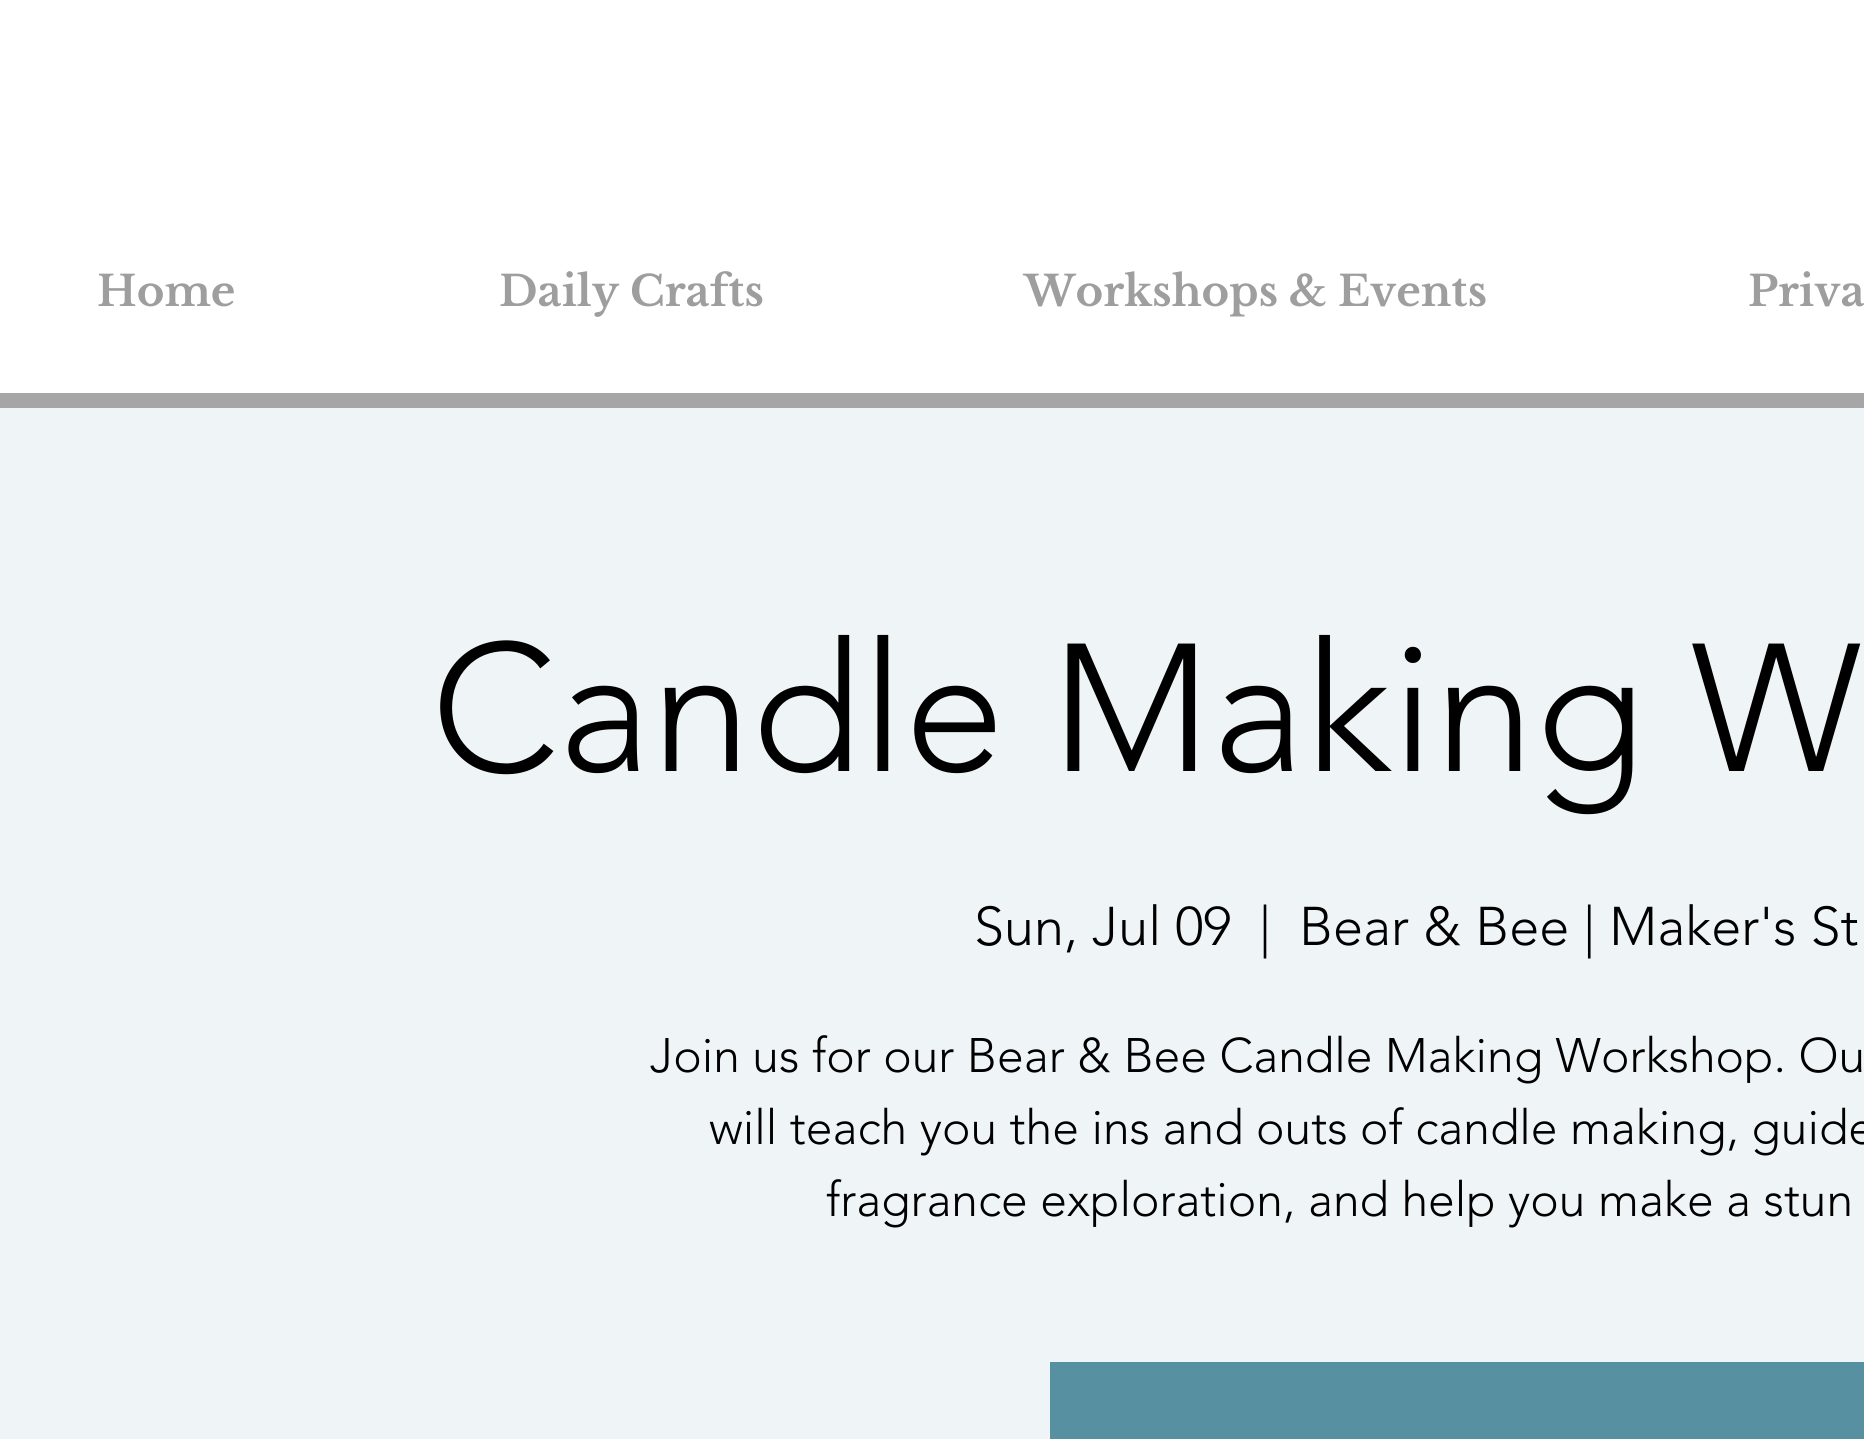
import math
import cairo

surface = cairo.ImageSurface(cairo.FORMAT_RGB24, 1864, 1439)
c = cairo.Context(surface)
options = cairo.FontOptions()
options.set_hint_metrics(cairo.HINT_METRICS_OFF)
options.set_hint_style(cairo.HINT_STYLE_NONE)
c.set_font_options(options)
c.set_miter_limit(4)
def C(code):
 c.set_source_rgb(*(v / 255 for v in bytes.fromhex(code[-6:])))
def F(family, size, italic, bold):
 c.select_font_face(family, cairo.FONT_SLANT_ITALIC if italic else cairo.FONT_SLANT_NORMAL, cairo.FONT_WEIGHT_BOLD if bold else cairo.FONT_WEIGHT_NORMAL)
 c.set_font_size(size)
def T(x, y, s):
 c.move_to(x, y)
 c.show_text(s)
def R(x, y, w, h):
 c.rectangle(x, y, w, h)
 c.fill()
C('ffffff')
c.paint()
F('Libre Baskerville',42,0,1)
C('9e9e9e')
T(97,306,'Home')
T(499,306,'Daily Crafts')
T(1024,306,'Workshops & Events')
T(1748,306,'Priva')
C('a6a6a6')
R(0,393,1864,15)
C('eff5f6')
R(0,408,1864,1031)
F('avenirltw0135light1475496 Light',180,0,0)
C('000000')
T(431,771,'Candle Making W')
F('avenirltw0135light1475496 Light',54,0,0)
T(974,945,'Sun, Jul 09')
T(1259,945,'|')
T(1299,945,'Bear & Bee | Maker\'s St')
F('avenirltw0135light1475496 Light',48,0,0)
T(650,1072,'Join us for our Bear & Bee Candle Making Workshop. Ou')
T(709,1144,'will teach you the ins and outs of candle making, guide')
T(826,1216,'fragrance exploration, and help you make a stun')
C('5790a1')
R(1050,1362,814,77)
surface.write_to_png('o.png')
